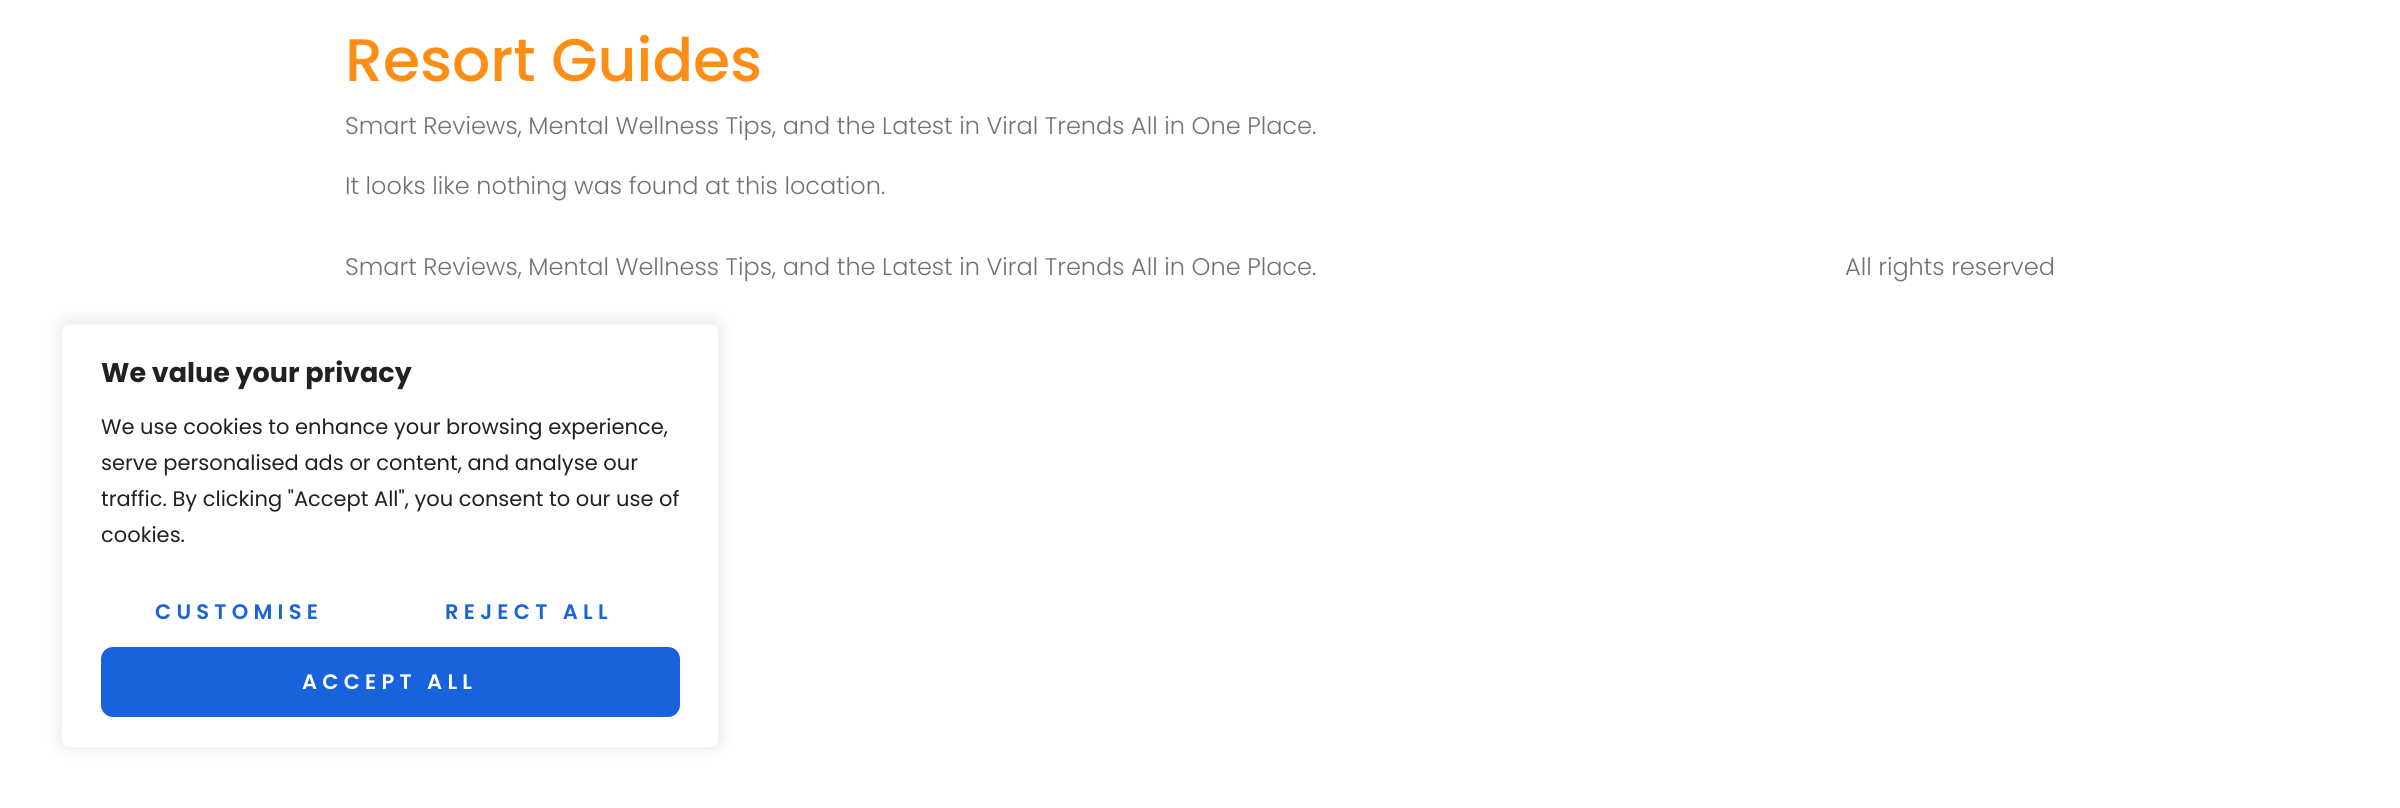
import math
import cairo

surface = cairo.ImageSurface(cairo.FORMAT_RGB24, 2400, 808)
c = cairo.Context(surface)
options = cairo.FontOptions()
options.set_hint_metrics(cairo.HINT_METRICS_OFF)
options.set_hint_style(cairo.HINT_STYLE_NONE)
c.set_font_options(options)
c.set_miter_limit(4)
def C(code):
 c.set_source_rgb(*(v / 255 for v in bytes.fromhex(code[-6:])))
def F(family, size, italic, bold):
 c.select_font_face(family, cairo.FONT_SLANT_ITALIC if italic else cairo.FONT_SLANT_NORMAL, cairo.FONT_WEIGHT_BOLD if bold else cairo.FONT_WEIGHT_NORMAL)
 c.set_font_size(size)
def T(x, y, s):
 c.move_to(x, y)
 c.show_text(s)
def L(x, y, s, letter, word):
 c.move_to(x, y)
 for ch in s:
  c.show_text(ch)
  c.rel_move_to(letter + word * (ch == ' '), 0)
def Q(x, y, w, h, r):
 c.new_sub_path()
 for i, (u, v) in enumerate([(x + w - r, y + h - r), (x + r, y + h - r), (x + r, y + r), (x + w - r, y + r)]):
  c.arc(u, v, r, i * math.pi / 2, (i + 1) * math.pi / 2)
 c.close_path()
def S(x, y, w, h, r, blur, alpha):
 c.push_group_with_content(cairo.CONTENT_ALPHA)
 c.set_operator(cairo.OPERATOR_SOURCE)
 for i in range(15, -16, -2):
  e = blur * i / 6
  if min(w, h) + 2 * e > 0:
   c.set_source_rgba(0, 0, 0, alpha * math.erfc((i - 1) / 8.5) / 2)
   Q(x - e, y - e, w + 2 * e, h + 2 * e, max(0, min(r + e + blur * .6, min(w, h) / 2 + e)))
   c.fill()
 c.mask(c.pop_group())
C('ffffff')
c.paint()
F('Poppins Medium',60,0,0)
C('fd8d14')
T(345,81,'Resort Guides')
F('Poppins Light',24,0,0)
C('727272')
T(345,134,'Smart Reviews, Mental Wellness Tips, and the Latest in Viral Trends All in One Place.')
T(345,194,'It looks like nothing was found at this location.')
T(345,275,'Smart Reviews, Mental Wellness Tips, and the Latest in Viral Trends All in One Place.')
T(1845,275,'All rights reserved')
C('acabab')
S(60,321,660,426,9,7.5,.3)
C('ffffff')
Q(61,324,658,424,8)
c.fill_preserve()
C('f4f4f4')
c.stroke()
F('Poppins',27,0,1)
C('212121')
T(101,382,'We value your privacy')
F('Poppins',21,0,0)
T(101,434,'We use cookies to enhance your browsing experience,')
T(101,470,'serve personalised ads or content, and analyse our')
T(101,506,'traffic. By clicking "Accept All", you consent to our use of')
T(101,542,'cookies.')
F('Poppins SemiBold',21,0,0)
C('1863dc')
L(155,619,'CUSTOMISE',5.25,0)
L(445,619,'REJECT ALL',5.25,0)
Q(101,647,579,70,12)
c.fill()
C('ffffff')
L(302,689,'ACCEPT ALL',5.25,0)
surface.write_to_png('o.png')
